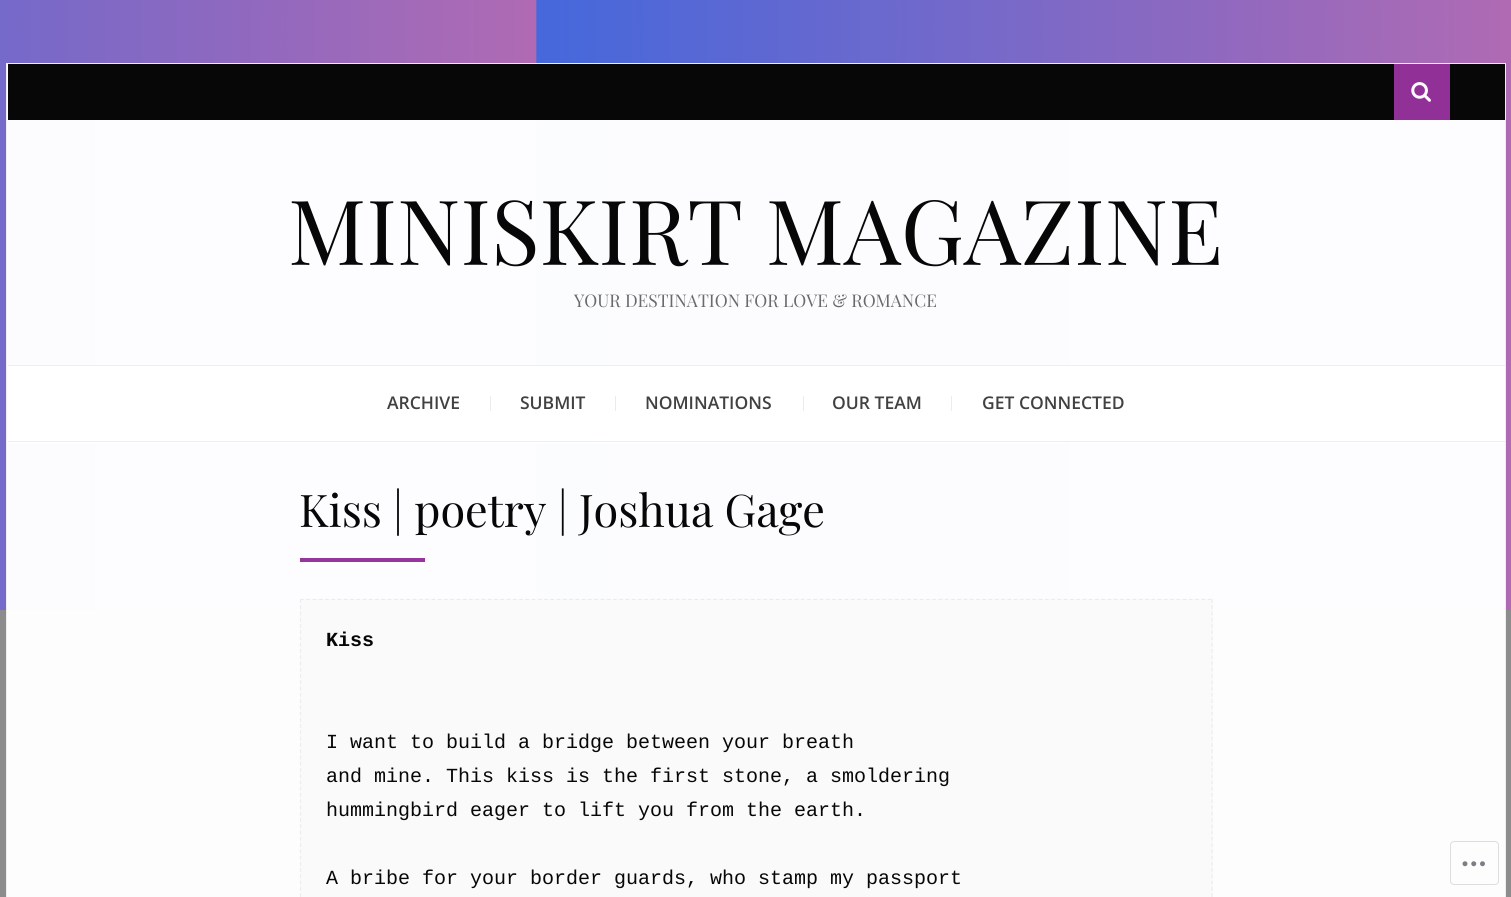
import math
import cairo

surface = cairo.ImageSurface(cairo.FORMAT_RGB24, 1511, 897)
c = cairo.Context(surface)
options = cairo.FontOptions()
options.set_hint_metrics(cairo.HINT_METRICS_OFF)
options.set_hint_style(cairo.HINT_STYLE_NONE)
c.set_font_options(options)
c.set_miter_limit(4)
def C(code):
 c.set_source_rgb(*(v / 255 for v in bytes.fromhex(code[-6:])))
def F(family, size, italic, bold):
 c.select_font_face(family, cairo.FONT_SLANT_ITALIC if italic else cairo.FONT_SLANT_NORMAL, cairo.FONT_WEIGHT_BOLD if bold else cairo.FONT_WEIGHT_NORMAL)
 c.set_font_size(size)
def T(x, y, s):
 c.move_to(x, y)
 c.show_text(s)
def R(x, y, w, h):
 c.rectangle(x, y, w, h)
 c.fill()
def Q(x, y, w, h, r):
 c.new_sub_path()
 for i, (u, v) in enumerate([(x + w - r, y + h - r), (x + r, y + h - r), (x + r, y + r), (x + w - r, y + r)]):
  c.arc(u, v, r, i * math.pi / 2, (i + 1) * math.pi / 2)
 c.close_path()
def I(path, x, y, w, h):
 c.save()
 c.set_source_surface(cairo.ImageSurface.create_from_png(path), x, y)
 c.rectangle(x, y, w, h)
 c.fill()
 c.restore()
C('8c8c8c')
c.paint()
I('1.png',0,0,1511,610)
c.set_source_rgba(1,1,1,0.98)
c.rectangle(6.5,63.5,1499,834)
c.fill_preserve()
C('eeeeee')
c.set_line_width(1)
c.stroke()
C('070707')
R(8,64,1497,56)
C('913096')
R(1394,64,56,56)
I('2.png',1411,82,20,20)
F('Playfair Display',90,0,0)
C('070707')
T(288,265,'MINISKIRT MAGAZINE')
F('Playfair Display',17.5,0,0)
C('696969')
T(574,307,'YOUR DESTINATION FOR LOVE & ROMANCE')
C('ffffff')
R(8,366,1497,77)
C('eeeeee')
R(8,365,1497,1)
R(8,441,1497,1)
F('Open Sans SemiBold',17.5,0,0)
C('414141')
T(387,409,'ARCHIVE')
C('edebed')
R(490,396,1,15)
C('414141')
T(520,409,'SUBMIT')
C('ebebee')
R(615,396,1,15)
C('414141')
T(645,409,'NOMINATIONS')
C('ebebed')
R(803,396,1,15)
C('414141')
T(832,409,'OUR TEAM')
C('ecebed')
R(951,396,1,15)
C('414141')
T(982,409,'GET CONNECTED')
F('Playfair Display',45,0,0)
C('070707')
T(299,527,'Kiss | poetry | Joshua Gage')
C('96359b')
R(300,558,125,4)
C('fafafa')
R(300,599,913,298)
c.new_path()
c.move_to(300,599.5)
c.line_to(1212.5,599.5)
C('ebebeb')
c.set_line_width(1.2)
c.set_dash([3.75,2.51])
c.stroke()
c.new_path()
c.move_to(1212,599)
c.line_to(1212,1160)
c.set_source_rgba(0.922,0.922,0.922,0.98)
c.stroke()
c.new_path()
c.move_to(300.5,599)
c.line_to(300.5,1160)
c.stroke()
F('Liberation Mono',20,0,1)
C('070707')
T(326,646,'Kiss')
F('Liberation Mono',20,0,0)
T(326,748,'I want to build a bridge between your breath')
T(326,782,'and mine. This kiss is the first stone, a smoldering')
T(326,816,'hummingbird eager to lift you from the earth.')
T(326,884,'A bribe for your border guards, who stamp my passport')
Q(1450.5,841.5,48,43,3.5)
C('dddddf')
c.set_line_width(1)
c.set_dash([])
c.stroke()
I('3.png',1462,861,23,6)
surface.write_to_png('o.png')
